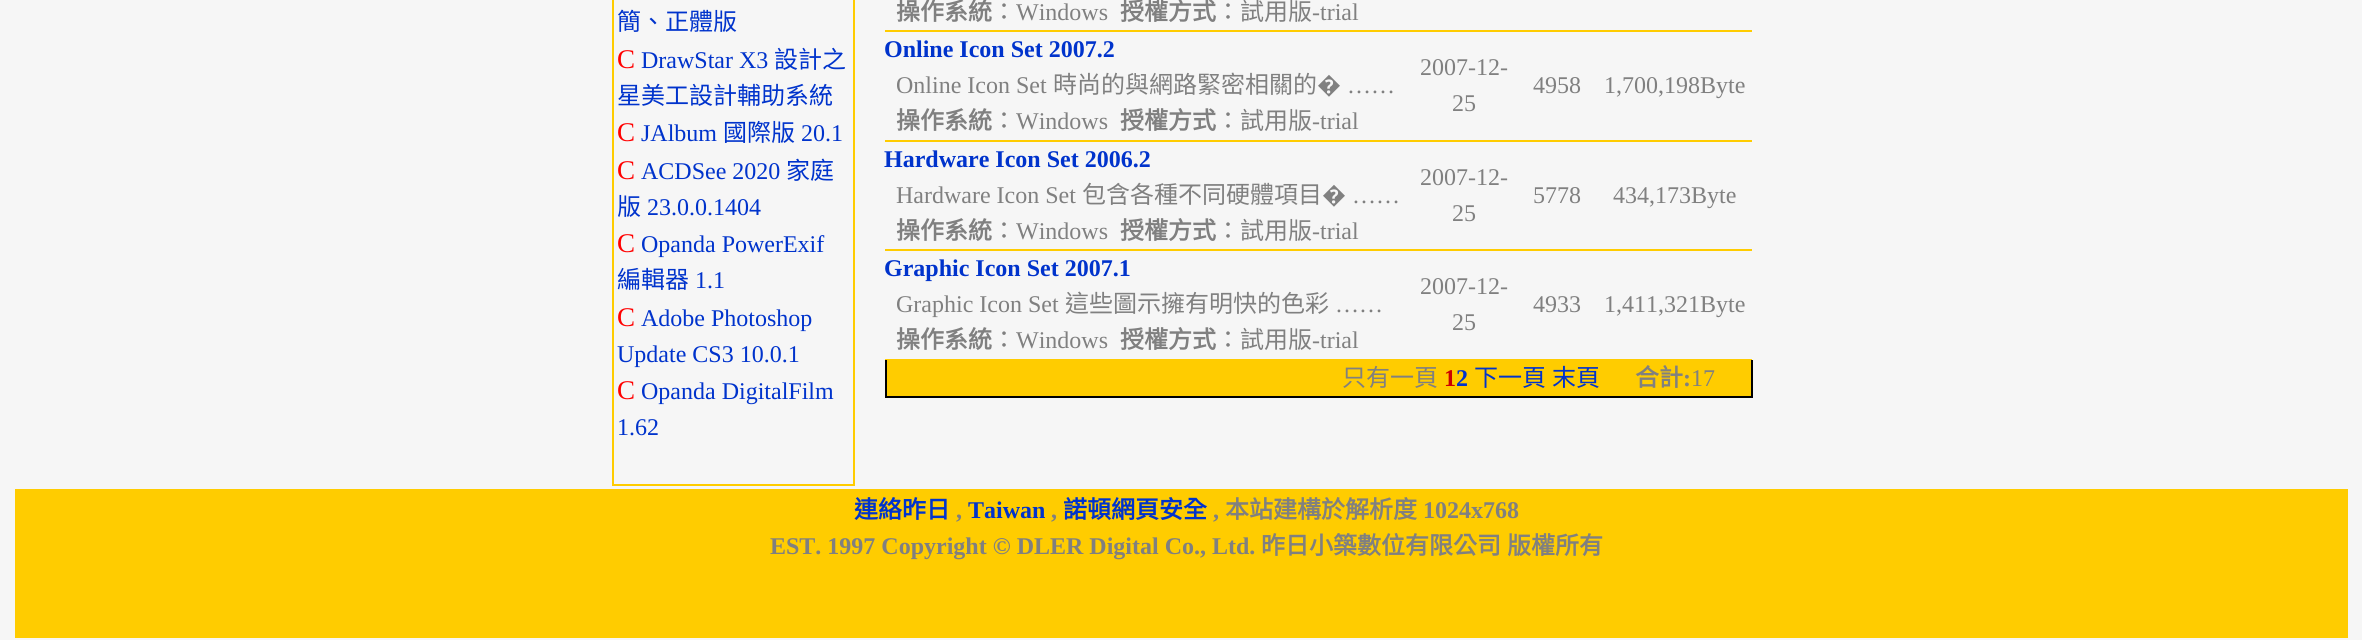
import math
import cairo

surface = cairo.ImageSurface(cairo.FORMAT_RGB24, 2362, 640)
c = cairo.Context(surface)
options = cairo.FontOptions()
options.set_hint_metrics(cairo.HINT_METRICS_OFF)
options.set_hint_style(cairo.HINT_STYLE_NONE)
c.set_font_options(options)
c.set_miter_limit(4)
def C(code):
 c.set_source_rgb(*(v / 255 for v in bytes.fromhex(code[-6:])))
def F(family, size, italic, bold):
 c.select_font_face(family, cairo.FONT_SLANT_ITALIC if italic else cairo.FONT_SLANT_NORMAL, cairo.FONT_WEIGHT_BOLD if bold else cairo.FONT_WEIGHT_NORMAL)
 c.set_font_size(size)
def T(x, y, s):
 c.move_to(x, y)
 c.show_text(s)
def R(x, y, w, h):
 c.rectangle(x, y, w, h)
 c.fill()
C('f6f6f6')
c.paint()
c.rectangle(613,-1,241,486)
C('ffcc00')
c.stroke()
F('Noto Sans CJK TC',24,0,0)
C('0033cc')
T(617,30,'簡、正體版')
F('Liberation Serif',27,0,0)
C('ff0000')
T(617,68,'C')
F('Liberation Serif',24,0,0)
C('0033cc')
T(641,68,'DrawStar X3')
F('Noto Sans CJK TC',24,0,0)
T(774,68,'設計之')
T(617,104,'星美工設計輔助系統')
F('Liberation Serif',27,0,0)
C('ff0000')
T(617,141,'C')
F('Liberation Serif',24,0,0)
C('0033cc')
T(641,141,'JAlbum')
F('Noto Sans CJK TC',24,0,0)
T(723,141,'國際版')
F('Liberation Serif',24,0,0)
T(801,141,'20.1')
F('Liberation Serif',27,0,0)
C('ff0000')
T(617,179,'C')
F('Liberation Serif',24,0,0)
C('0033cc')
T(641,179,'ACDSee 2020')
F('Noto Sans CJK TC',24,0,0)
T(786,179,'家庭')
T(617,215,'版')
F('Liberation Serif',24,0,0)
T(647,215,'23.0.0.1404')
F('Liberation Serif',27,0,0)
C('ff0000')
T(617,252,'C')
F('Liberation Serif',24,0,0)
C('0033cc')
T(641,252,'Opanda PowerExif')
F('Noto Sans CJK TC',24,0,0)
T(617,288,'編輯器')
F('Liberation Serif',24,0,0)
T(695,288,'1.1')
F('Liberation Serif',27,0,0)
C('ff0000')
T(617,326,'C')
F('Liberation Serif',24,0,0)
C('0033cc')
T(641,326,'Adobe Photoshop')
T(617,362,'Update CS3 10.0.1')
F('Liberation Serif',27,0,0)
C('ff0000')
T(617,399,'C')
F('Liberation Serif',24,0,0)
C('0033cc')
T(641,399,'Opanda DigitalFilm')
T(617,435,'1.62')
F('Noto Sans CJK TC',24,0,1)
C('808080')
T(896,20,'操作系統')
F('Noto Sans CJK TC',24,0,0)
T(992,20,'：')
F('Liberation Serif',24,0,0)
T(1016,20,'Windows')
F('Noto Sans CJK TC',24,0,1)
T(1120,20,'授權方式')
F('Noto Sans CJK TC',24,0,0)
T(1216,20,'：試用版')
F('Liberation Serif',24,0,0)
T(1312,20,'-trial')
C('ffcc00')
R(885,30,867,2)
F('Liberation Serif',24,0,1)
C('0033cc')
T(884,57,'Online Icon Set 2007.2')
F('Liberation Serif',24,0,0)
C('808080')
T(896,93,'Online Icon Set')
F('Noto Sans CJK TC',24,0,0)
T(1053,93,'時尚的與網路緊密相關的')
F('Noto Sans',24,0,0)
T(1317,93,'�')
F('Liberation Serif',24,0,0)
T(1347,93,'……')
F('Noto Sans CJK TC',24,0,1)
T(896,129,'操作系統')
F('Noto Sans CJK TC',24,0,0)
T(992,129,'：')
F('Liberation Serif',24,0,0)
T(1016,129,'Windows')
F('Noto Sans CJK TC',24,0,1)
T(1120,129,'授權方式')
F('Noto Sans CJK TC',24,0,0)
T(1216,129,'：試用版')
F('Liberation Serif',24,0,0)
T(1312,129,'-trial')
T(1420,75,'2007-12-')
T(1452,111,'25')
T(1533,93,'4958')
T(1604,93,'1,700,198Byte')
C('ffcc00')
R(885,140,867,2)
F('Liberation Serif',24,0,1)
C('0033cc')
T(884,167,'Hardware Icon Set 2006.2')
F('Liberation Serif',24,0,0)
C('808080')
T(896,203,'Hardware Icon Set')
F('Noto Sans CJK TC',24,0,0)
T(1082,203,'包含各種不同硬體項目')
F('Noto Sans',24,0,0)
T(1322,203,'�')
F('Liberation Serif',24,0,0)
T(1352,203,'……')
F('Noto Sans CJK TC',24,0,1)
T(896,239,'操作系統')
F('Noto Sans CJK TC',24,0,0)
T(992,239,'：')
F('Liberation Serif',24,0,0)
T(1016,239,'Windows')
F('Noto Sans CJK TC',24,0,1)
T(1120,239,'授權方式')
F('Noto Sans CJK TC',24,0,0)
T(1216,239,'：試用版')
F('Liberation Serif',24,0,0)
T(1312,239,'-trial')
T(1420,185,'2007-12-')
T(1452,221,'25')
T(1533,203,'5778')
T(1613,203,'434,173Byte')
C('ffcc00')
R(885,249,867,2)
F('Liberation Serif',24,0,1)
C('0033cc')
T(884,276,'Graphic Icon Set 2007.1')
F('Liberation Serif',24,0,0)
C('808080')
T(896,312,'Graphic Icon Set')
F('Noto Sans CJK TC',24,0,0)
T(1065,312,'這些圖示擁有明快的色彩')
F('Liberation Serif',24,0,0)
T(1335,312,'……')
F('Noto Sans CJK TC',24,0,1)
T(896,348,'操作系統')
F('Noto Sans CJK TC',24,0,0)
T(992,348,'：')
F('Liberation Serif',24,0,0)
T(1016,348,'Windows')
F('Noto Sans CJK TC',24,0,1)
T(1120,348,'授權方式')
F('Noto Sans CJK TC',24,0,0)
T(1216,348,'：試用版')
F('Liberation Serif',24,0,0)
T(1312,348,'-trial')
T(1420,294,'2007-12-')
T(1452,330,'25')
T(1533,312,'4933')
T(1604,312,'1,411,321Byte')
C('ffcc00')
R(885,359,867,1)
R(887,360,864,36)
C('000000')
R(1751,360,2,38)
R(885,396,867,2)
R(885,360,2,38)
F('Noto Sans CJK TC',24,0,0)
C('808080')
T(1342,386,'只有一頁')
F('Liberation Serif',24,0,1)
C('cc0000')
T(1444,386,'1')
C('0033cc')
T(1456,386,'2')
F('Noto Sans CJK TC',24,0,0)
T(1474,386,'下一頁')
T(1552,386,'末頁')
F('Noto Sans CJK TC',24,0,1)
C('808080')
T(1635,386,'合計')
F('Liberation Serif',24,0,1)
T(1683,386,':')
F('Liberation Serif',24,0,0)
T(1691,386,'17')
C('ffcc00')
R(15,489,2333,149)
F('Noto Sans CJK TC',24,0,1)
C('0033cc')
T(854,518,'連絡昨日')
F('Liberation Serif',24,0,1)
C('808080')
T(956,518,',')
C('0033cc')
T(968,518,'Taiwan')
C('808080')
T(1051,518,',')
F('Noto Sans CJK TC',24,0,1)
C('0033cc')
T(1063,518,'諾頓網頁安全')
F('Liberation Serif',24,0,1)
C('808080')
T(1213,518,',')
F('Noto Sans CJK TC',24,0,1)
T(1225,518,'本站建構於解析度')
F('Liberation Serif',24,0,1)
T(1423,518,'1024x768')
T(770,554,'EST. 1997 Copyright © DLER Digital Co., Ltd.')
F('Noto Sans CJK TC',24,0,1)
T(1261,554,'昨日小築數位有限公司')
T(1507,554,'版權所有')
surface.write_to_png('o.png')
